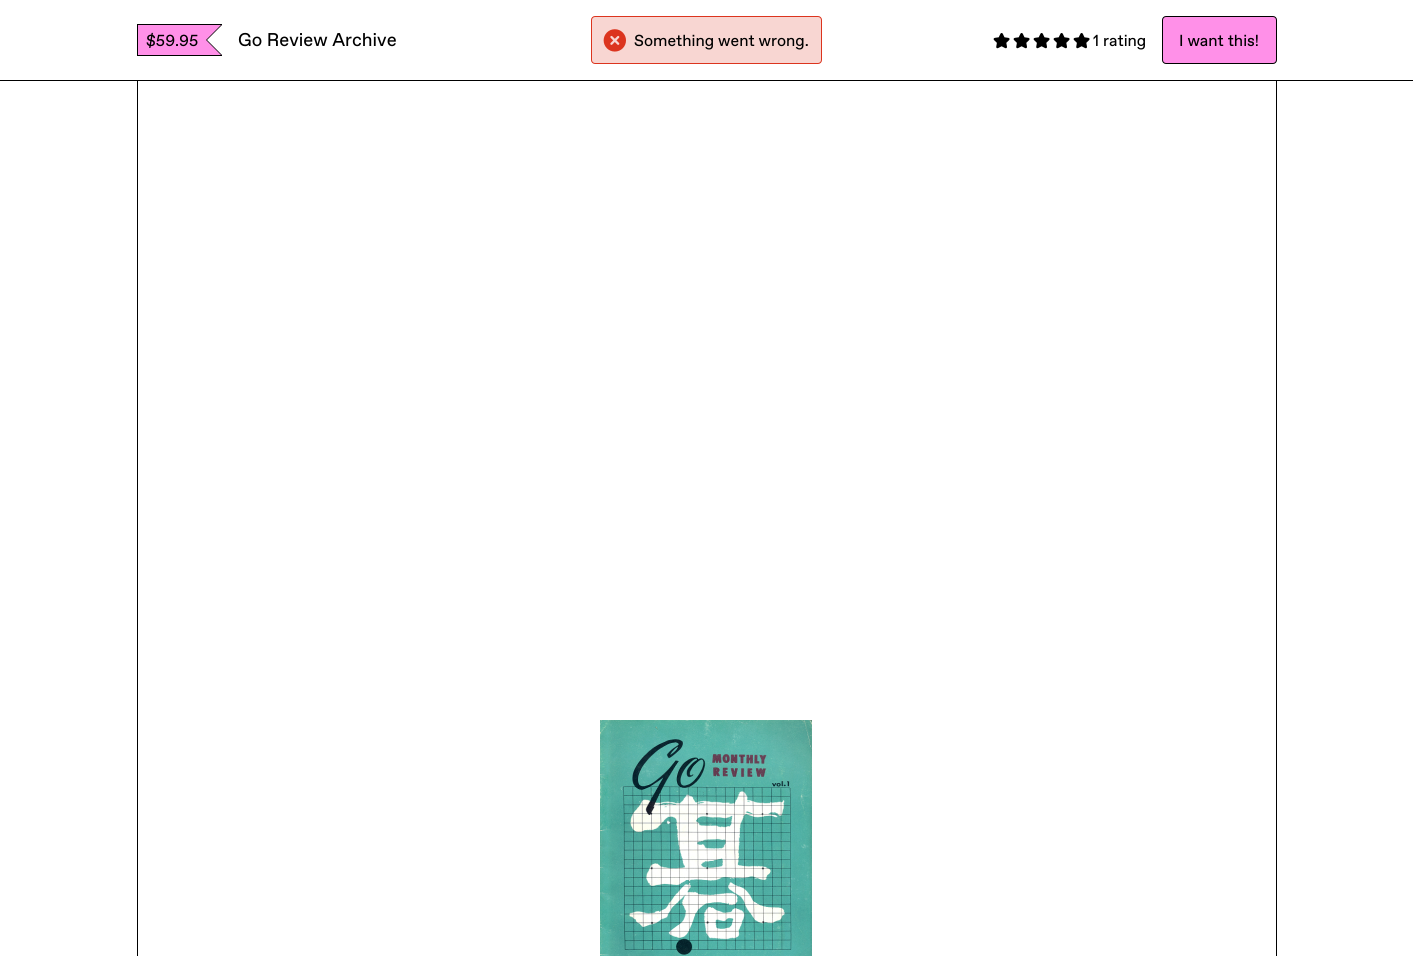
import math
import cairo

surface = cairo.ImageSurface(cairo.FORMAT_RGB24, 1413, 956)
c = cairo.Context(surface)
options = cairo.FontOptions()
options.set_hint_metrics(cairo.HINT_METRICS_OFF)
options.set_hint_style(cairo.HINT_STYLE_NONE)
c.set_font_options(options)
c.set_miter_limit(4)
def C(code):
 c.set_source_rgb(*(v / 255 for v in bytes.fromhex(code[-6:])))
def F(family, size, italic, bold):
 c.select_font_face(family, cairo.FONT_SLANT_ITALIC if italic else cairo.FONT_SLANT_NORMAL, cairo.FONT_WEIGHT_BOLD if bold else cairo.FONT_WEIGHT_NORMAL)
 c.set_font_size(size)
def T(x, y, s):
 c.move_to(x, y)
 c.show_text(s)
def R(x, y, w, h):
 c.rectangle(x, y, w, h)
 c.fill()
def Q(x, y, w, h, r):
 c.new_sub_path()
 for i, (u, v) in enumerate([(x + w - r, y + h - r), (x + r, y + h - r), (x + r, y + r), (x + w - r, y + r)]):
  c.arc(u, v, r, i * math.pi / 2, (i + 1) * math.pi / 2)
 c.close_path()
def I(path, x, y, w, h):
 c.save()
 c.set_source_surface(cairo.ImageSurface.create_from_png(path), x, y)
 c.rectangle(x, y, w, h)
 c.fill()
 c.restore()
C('ffffff')
c.paint()
c.rectangle(137.5,64.5,1139,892)
C('000000')
c.set_line_width(1)
c.stroke()
R(0,80,1413,1)
C('ffffff')
R(137,64,1140,16)
C('000000')
R(137,24,85,1)
R(137,55,85,1)
R(137,24,1,32)
C('ff90e8')
R(138,25,68,30)
C('000000')
c.new_path()
c.move_to(206,25)
c.line_to(222,25)
c.line_to(207,40)
c.close_path()
c.move_to(222,55)
c.line_to(206,55)
c.line_to(207,40)
c.close_path()
c.fill()
R(206,39,1,2)
C('ff90e8')
c.new_path()
c.move_to(205,25)
c.line_to(221,25)
c.line_to(206,40)
c.close_path()
c.move_to(221,55)
c.line_to(205,55)
c.line_to(206,40)
c.close_path()
c.fill()
F('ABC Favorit',16,0,0)
C('000000')
T(146,46,'$59.95')
F('ABC Favorit',18.5,0,0)
T(238,46,'Go Review Archive')
I('1.png',993,33,17,16)
I('1.png',1013,33,17,16)
I('1.png',1033,33,17,16)
I('1.png',1053,33,17,16)
I('1.png',1073,33,17,16)
F('ABC Favorit',16,0,0)
T(1093,46,'1 rating')
C('ff90e8')
Q(1162.5,16.5,114,47,3.5)
c.fill_preserve()
C('000000')
c.stroke()
T(1179,46,'I want this!')
I('2.png',600,720,212,236)
C('f8d6d2')
Q(591.5,16.5,230,47,3.5)
c.fill_preserve()
C('dc341e')
c.stroke()
I('3.png',603,29,23,23)
C('000000')
T(634,46,'Something went wrong.')
surface.write_to_png('o.png')
